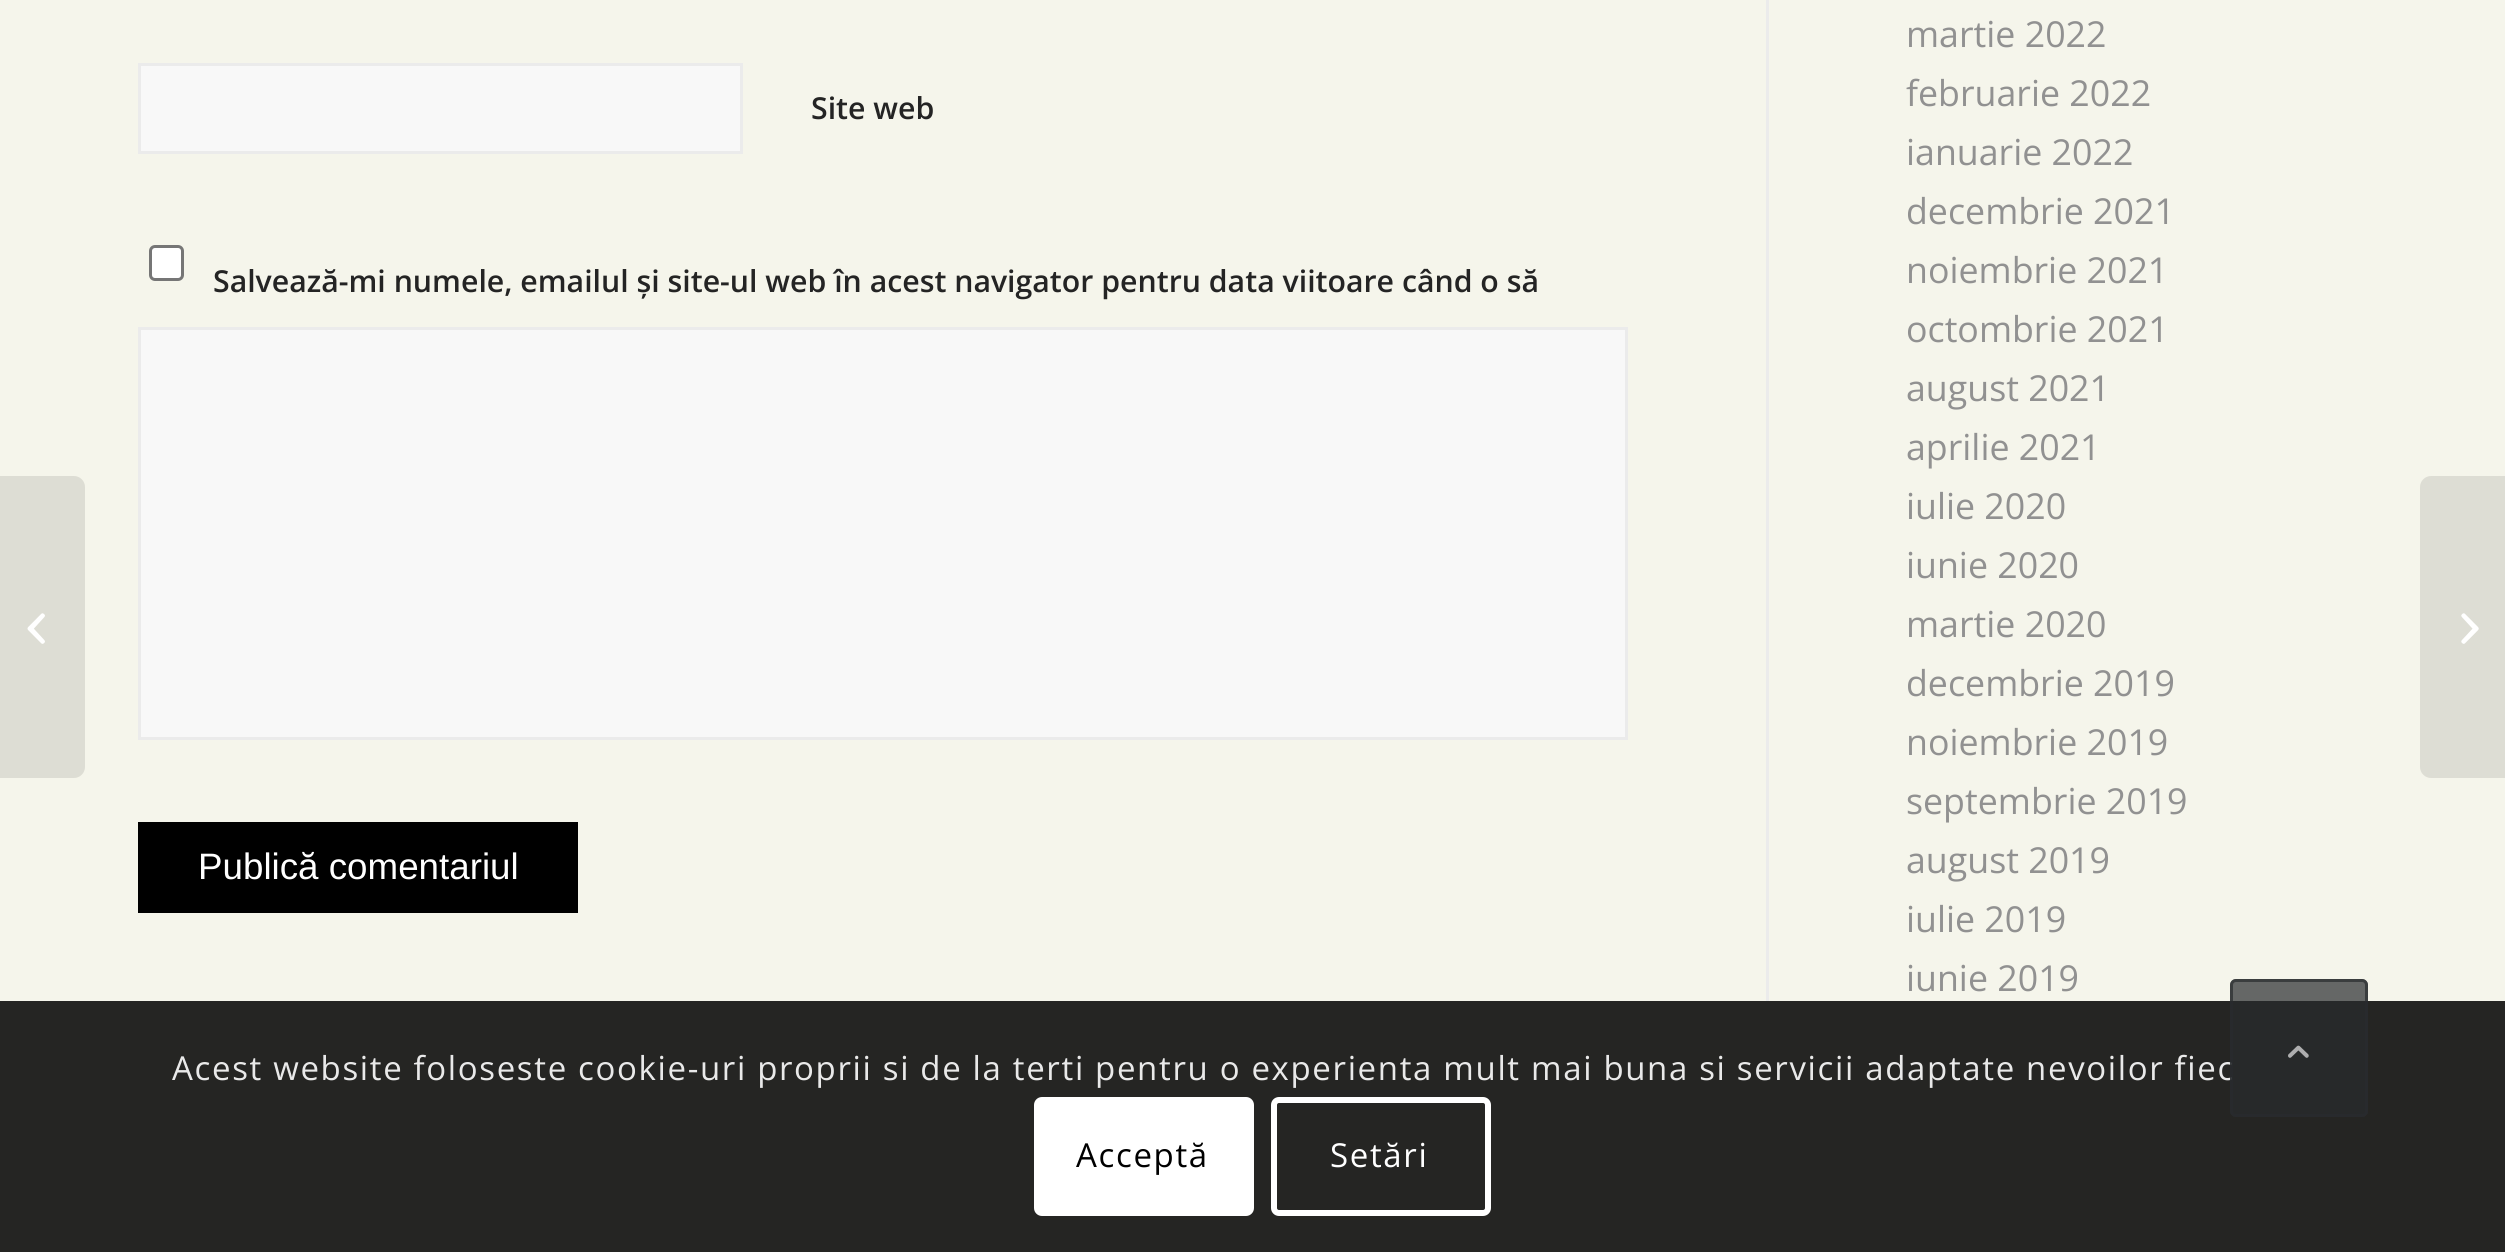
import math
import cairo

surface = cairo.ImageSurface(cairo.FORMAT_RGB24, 2505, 1252)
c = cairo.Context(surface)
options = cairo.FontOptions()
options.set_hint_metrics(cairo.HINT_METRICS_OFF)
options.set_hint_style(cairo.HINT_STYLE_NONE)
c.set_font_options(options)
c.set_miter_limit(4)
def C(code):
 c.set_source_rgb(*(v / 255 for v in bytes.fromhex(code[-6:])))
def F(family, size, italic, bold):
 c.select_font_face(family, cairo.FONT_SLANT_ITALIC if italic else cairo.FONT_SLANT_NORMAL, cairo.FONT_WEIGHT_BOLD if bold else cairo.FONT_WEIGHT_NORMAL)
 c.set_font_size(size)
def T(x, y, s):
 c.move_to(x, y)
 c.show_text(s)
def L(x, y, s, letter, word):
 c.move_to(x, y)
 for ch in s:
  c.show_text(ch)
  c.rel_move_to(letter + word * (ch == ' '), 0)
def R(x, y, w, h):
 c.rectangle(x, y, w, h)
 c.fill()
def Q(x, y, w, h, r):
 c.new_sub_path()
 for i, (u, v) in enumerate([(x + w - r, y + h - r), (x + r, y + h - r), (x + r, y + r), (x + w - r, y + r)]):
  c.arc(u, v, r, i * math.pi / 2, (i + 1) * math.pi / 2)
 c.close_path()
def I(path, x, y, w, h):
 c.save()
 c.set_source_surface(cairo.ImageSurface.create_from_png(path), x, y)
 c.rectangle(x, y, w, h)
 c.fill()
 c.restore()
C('f5f5eb')
c.paint()
C('ddddd4')
c.new_path()
c.move_to(0,476)
c.line_to(74,476)
c.curve_to(80,476,85,481,85,487)
c.line_to(85,767)
c.curve_to(85,773,80,778,74,778)
c.line_to(0,778)
c.close_path()
c.fill()
I('1.png',27,613,18,31)
C('252523')
R(0,1001,2505,251)
C('f8f8f8')
c.rectangle(139.5,64.5,602,88)
c.fill_preserve()
C('ebebeb')
c.set_line_width(3)
c.stroke()
F('Open Sans SemiBold',30.25,0,0)
C('242424')
T(811,119,'Site web')
C('ffffff')
Q(150.5,246.5,32,33,4.5)
c.fill_preserve()
C('767676')
c.stroke()
C('242424')
T(213,292,'Salvează-mi numele, emailul și site-ul web în acest navigator pentru data viitoare când o să')
C('f8f8f8')
c.rectangle(139.5,328.5,1487,410)
c.fill_preserve()
C('ebebeb')
c.stroke()
C('000000')
R(138,822,440,91)
F('Liberation Sans',36.75,0,0)
C('ffffff')
T(198,879,'Publică comentariul')
C('ebebeb')
R(1766,0,3,1001)
F('Open Sans',35.75,0,0)
C('919191')
T(1906,47,'martie 2022')
T(1906,106,'februarie 2022')
T(1906,165,'ianuarie 2022')
T(1906,224,'decembrie 2021')
T(1906,283,'noiembrie 2021')
T(1906,342,'octombrie 2021')
T(1906,401,'august 2021')
T(1906,460,'aprilie 2021')
T(1906,519,'iulie 2020')
T(1906,578,'iunie 2020')
T(1906,637,'martie 2020')
T(1906,696,'decembrie 2019')
T(1906,755,'noiembrie 2019')
T(1906,814,'septembrie 2019')
T(1906,873,'august 2019')
T(1906,932,'iulie 2019')
T(1906,991,'iunie 2019')
C('ddddd4')
c.new_path()
c.move_to(2431,476)
c.line_to(2505,476)
c.line_to(2505,778)
c.line_to(2431,778)
c.curve_to(2425,778,2420,773,2420,767)
c.line_to(2420,487)
c.curve_to(2420,481,2425,476,2431,476)
c.close_path()
c.fill()
I('2.png',2461,613,18,31)
F('Open Sans',33,0,0)
C('e9e9e9')
L(172,1080,'Acest website foloseste cookie-uri proprii si de la terti pentru o experienta mult mai buna si servicii adaptate nevoilor fiec',1.65,0)
C('ffffff')
Q(1034,1097,220,119,8)
c.fill()
C('000000')
L(1076,1167,'Acceptă',1.65,0)
Q(1274,1100,214,113,5)
C('ffffff')
c.set_line_width(6)
c.stroke()
L(1330,1167,'Setări',1.65,0)
c.set_source_rgba(0.157,0.169,0.18,0.7)
Q(2230,979,138,138,6)
c.fill()
Q(2231.5,980.5,135,135,4.5)
c.set_line_width(3)
c.stroke()
I('3.png',2288,1045,21,13)
surface.write_to_png('o.png')
